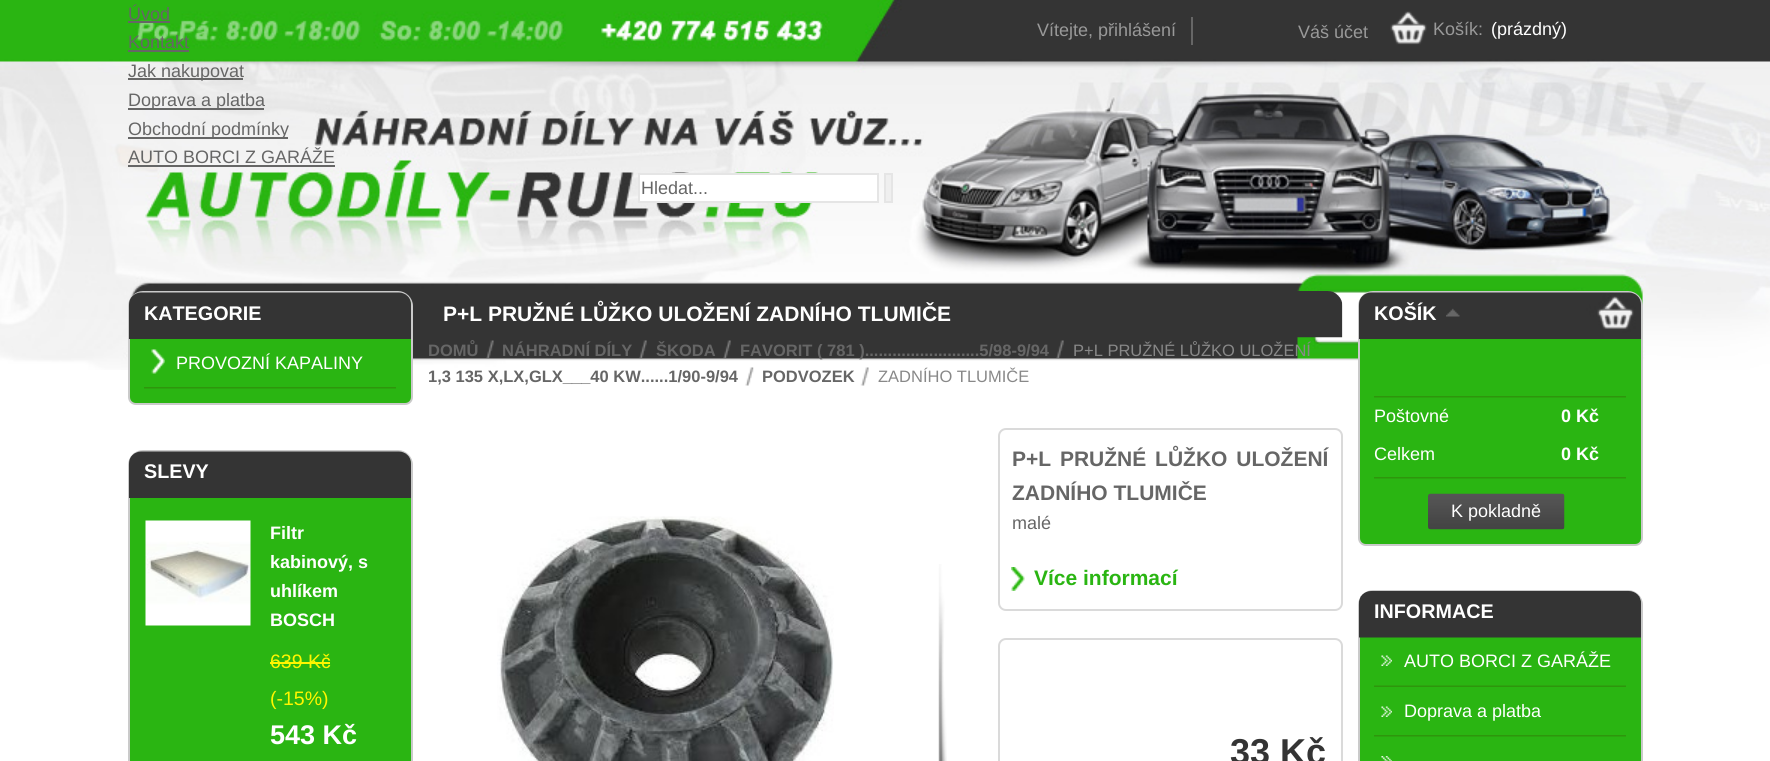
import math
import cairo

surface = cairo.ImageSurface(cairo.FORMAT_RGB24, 1770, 761)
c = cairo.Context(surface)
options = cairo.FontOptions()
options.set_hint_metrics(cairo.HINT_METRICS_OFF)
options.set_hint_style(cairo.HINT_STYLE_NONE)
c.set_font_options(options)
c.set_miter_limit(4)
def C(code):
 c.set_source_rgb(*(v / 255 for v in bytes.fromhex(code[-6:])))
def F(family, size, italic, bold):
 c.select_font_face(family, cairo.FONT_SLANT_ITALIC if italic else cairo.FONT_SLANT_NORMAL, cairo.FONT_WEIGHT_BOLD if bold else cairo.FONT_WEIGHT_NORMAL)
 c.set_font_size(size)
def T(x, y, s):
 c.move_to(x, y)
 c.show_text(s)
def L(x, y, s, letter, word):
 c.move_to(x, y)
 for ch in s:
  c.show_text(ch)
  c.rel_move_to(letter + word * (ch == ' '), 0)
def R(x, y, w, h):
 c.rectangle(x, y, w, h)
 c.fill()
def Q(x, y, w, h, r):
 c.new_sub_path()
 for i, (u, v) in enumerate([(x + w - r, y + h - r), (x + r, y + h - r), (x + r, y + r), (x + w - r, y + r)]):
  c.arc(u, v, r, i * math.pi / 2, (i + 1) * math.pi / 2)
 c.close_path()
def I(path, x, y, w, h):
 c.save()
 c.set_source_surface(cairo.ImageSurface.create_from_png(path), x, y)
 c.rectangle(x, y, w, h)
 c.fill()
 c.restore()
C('ffffff')
c.paint()
I('1.png',0,0,1770,370)
F('Liberation Sans',18,0,0)
C('666666')
T(128,20,'Úvod')
R(128,21,42,2)
T(128,48,'Kontakt')
R(128,50,61,2)
R(128,78,115,2)
T(128,77,'Jak nakupovat')
R(128,108,136,2)
T(128,106,'Doprava a platba')
R(128,137,160,2)
T(128,135,'Obchodní podmínky')
T(128,163,'AUTO BORCI Z GARÁŽE')
R(128,165,207,2)
C('ffffff')
c.rectangle(639,174,239,28)
c.fill_preserve()
C('e5e5e5')
c.stroke()
C('666666')
T(641,194,'Hledat...')
C('efefef')
c.rectangle(885,174,7,28)
c.fill_preserve()
C('e5e5e5')
c.stroke()
C('666666')
R(1191,17,2,28)
C('999999')
T(1037,36,'Vítejte, přihlášení')
T(1298,38,'Váš účet')
I('2.png',1390,11,37,34)
T(1433,35,'Košík:')
C('ffffff')
T(1491,35,'(prázdný)')
C('2ab512')
c.new_path()
c.move_to(143,292)
c.line_to(398,292)
c.curve_to(405.5,292,412,298.5,412,306)
c.line_to(412,397)
c.curve_to(412,401,409,404,405,404)
c.line_to(136,404)
c.curve_to(132,404,129,401,129,397)
c.line_to(129,306)
c.curve_to(129,298.5,135.5,292,143,292)
c.close_path()
c.fill_preserve()
C('cacaca')
c.stroke()
I('3.png',129,292,282,47)
F('Liberation Sans',19.75,0,1)
C('ffffff')
T(144,320,'KATEGORIE')
I('4.png',144,387,252,2)
I('5.png',151,349,14,25)
F('Liberation Sans',18,0,0)
T(176,369,'PROVOZNÍ KAPALINY')
C('2ab512')
c.new_path()
c.move_to(143,451)
c.line_to(398,451)
c.curve_to(405.5,451,412,457.5,412,465)
c.line_to(412,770)
c.curve_to(412,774,409,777,405,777)
c.line_to(136,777)
c.curve_to(132,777,129,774,129,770)
c.line_to(129,465)
c.curve_to(129,457.5,135.5,451,143,451)
c.close_path()
c.fill_preserve()
C('cacaca')
c.stroke()
I('6.png',129,451,282,47)
F('Liberation Sans',19.75,0,1)
C('ffffff')
T(144,478,'SLEVY')
I('7.png',145,520,106,106)
F('Liberation Sans',18,0,1)
T(270,539,'Filtr')
T(270,568,'kabinový, s')
T(270,597,'uhlíkem')
T(270,626,'BOSCH')
F('Liberation Sans',19.5,0,0)
C('fff600')
T(270,668,'639 Kč')
R(270,662,60,2)
T(270,705,'(-15%)')
F('Liberation Sans',27,0,1)
C('ffffff')
T(270,744,'543 Kč')
I('8.png',1297,291,46,47)
F('Liberation Sans',21,0,1)
T(443,321,'P+L PRUŽNÉ LŮŽKO ULOŽENÍ ZADNÍHO TLUMIČE')
F('Liberation Sans',16.5,0,1)
C('666666')
T(428,356,'DOMŮ')
I('9.png',486,340,8,18)
T(502,356,'NÁHRADNÍ DÍLY')
I('10.png',639,340,8,18)
T(656,356,'ŠKODA')
I('10.png',723,340,8,18)
T(740,356,'FAVORIT ( 781 ).........................5/98-9/94')
I('10.png',1056,340,8,18)
F('Liberation Sans',16.5,0,0)
C('888888')
T(1073,356,'P+L PRUŽNÉ LŮŽKO ULOŽENÍ')
F('Liberation Sans',16.5,0,1)
C('666666')
T(428,382,'1,3 135 X,LX,GLX___40 KW......1/90-9/94')
I('11.png',745,367,9,19)
T(762,382,'PODVOZEK')
I('12.png',860,367,9,19)
F('Liberation Sans',16.5,0,0)
C('888888')
T(878,382,'ZADNÍHO TLUMIČE')
I('13.png',497,516,337,245)
I('14.png',938,564,9,197)
Q(999,429,343,181,7)
C('dadada')
c.stroke()
F('Liberation Sans',21,0,1)
C('666666')
L(1012,466,'P+L PRUŽNÉ LŮŽKO ULOŽENÍ',0,3)
T(1012,500,'ZADNÍHO TLUMIČE')
F('Liberation Sans',18,0,0)
T(1012,529,'malé')
I('15.png',1011,567,14,24)
F('Liberation Sans',21,0,1)
C('2ab512')
T(1034,585,'Více informací')
Q(999,639,343,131,7)
C('dadada')
c.stroke()
F('Liberation Sans',36,0,1)
C('343434')
T(1230,764,'33 Kč')
C('2ab512')
c.new_path()
c.move_to(1373,292)
c.line_to(1628,292)
c.curve_to(1635.5,292,1642,298.5,1642,306)
c.line_to(1642,538)
c.curve_to(1642,542,1639,545,1635,545)
c.line_to(1366,545)
c.curve_to(1362,545,1359,542,1359,538)
c.line_to(1359,306)
c.curve_to(1359,298.5,1365.5,292,1373,292)
c.close_path()
c.fill_preserve()
C('cacaca')
c.stroke()
I('16.png',1359,292,282,47)
F('Liberation Sans',19.75,0,1)
C('ffffff')
T(1374,320,'KOŠÍK')
I('17.png',1446,308,14,9)
I('4.png',1374,396,252,2)
I('4.png',1374,477,252,2)
F('Liberation Sans',18,0,0)
T(1374,422,'Poštovné')
F('Liberation Sans',18,0,1)
T(1561,422,'0 Kč')
F('Liberation Sans',18,0,0)
T(1374,460,'Celkem')
F('Liberation Sans',18,0,1)
T(1561,460,'0 Kč')
I('18.png',1428,493,137,37)
F('Liberation Sans',18,0,0)
T(1451,517,'K pokladně')
C('2ab512')
c.new_path()
c.move_to(1373,591)
c.line_to(1628,591)
c.curve_to(1635.5,591,1642,597.5,1642,605)
c.line_to(1642,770)
c.curve_to(1642,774,1639,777,1635,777)
c.line_to(1366,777)
c.curve_to(1362,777,1359,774,1359,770)
c.line_to(1359,605)
c.curve_to(1359,597.5,1365.5,591,1373,591)
c.close_path()
c.fill_preserve()
C('cacaca')
c.stroke()
I('19.png',1359,591,282,47)
F('Liberation Sans',19.75,0,1)
C('ffffff')
T(1374,618,'INFORMACE')
I('20.png',1374,685,252,2)
I('21.png',1381,655,11,11)
F('Liberation Sans',18,0,0)
T(1404,667,'AUTO BORCI Z GARÁŽE')
I('4.png',1374,735,252,2)
I('21.png',1381,706,11,11)
T(1404,717,'Doprava a platba')
I('22.png',1381,756,11,5)
surface.write_to_png('o.png')
